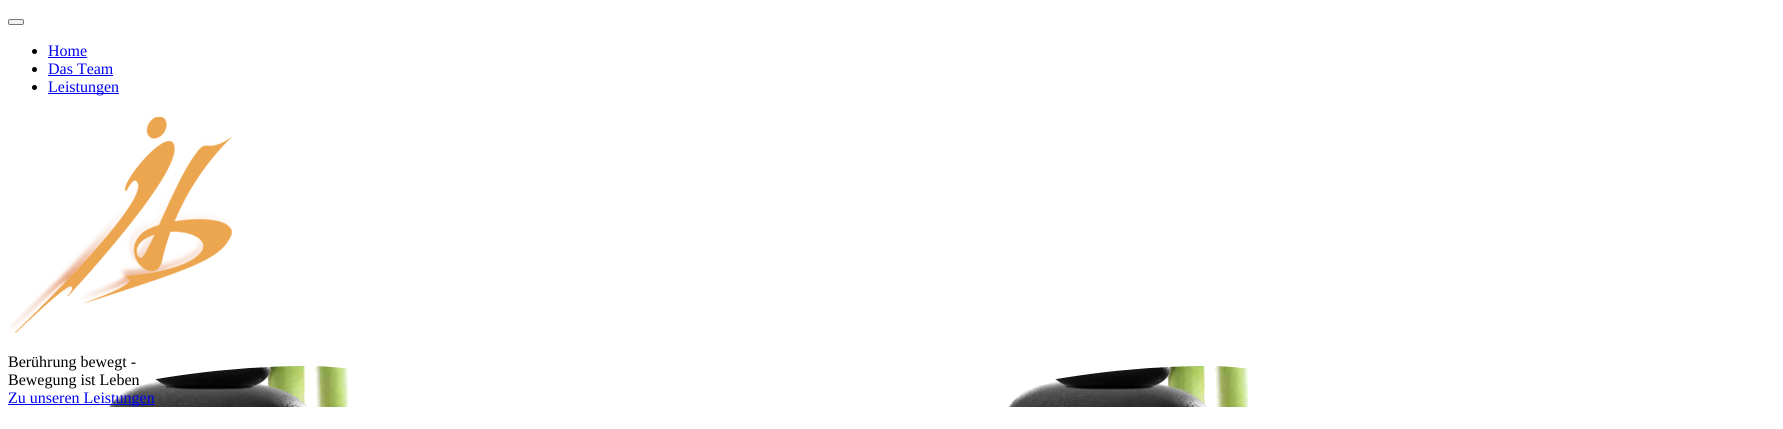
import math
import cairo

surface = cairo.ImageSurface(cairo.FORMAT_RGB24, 1783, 429)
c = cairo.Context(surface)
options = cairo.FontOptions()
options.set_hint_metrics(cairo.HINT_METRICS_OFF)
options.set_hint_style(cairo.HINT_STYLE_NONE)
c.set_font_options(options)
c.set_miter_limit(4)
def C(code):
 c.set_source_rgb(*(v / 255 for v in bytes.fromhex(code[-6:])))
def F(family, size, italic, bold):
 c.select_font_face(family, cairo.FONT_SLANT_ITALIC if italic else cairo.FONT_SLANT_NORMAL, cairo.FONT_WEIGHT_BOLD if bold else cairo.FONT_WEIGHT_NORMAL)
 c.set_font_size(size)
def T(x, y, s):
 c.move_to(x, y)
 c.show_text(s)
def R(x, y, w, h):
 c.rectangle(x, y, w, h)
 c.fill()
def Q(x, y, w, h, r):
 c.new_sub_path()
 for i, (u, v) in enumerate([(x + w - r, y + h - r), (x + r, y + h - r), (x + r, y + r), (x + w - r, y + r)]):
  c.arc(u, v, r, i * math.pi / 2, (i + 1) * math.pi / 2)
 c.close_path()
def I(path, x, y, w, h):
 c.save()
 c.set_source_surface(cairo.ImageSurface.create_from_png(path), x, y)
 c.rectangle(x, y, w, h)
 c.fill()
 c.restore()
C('ffffff')
c.paint()
C('efefef')
Q(8.5,19.5,15,5,1.5)
c.fill_preserve()
C('767676')
c.set_line_width(1)
c.stroke()
C('000000')
c.arc(34.5,51.5,2.5,0,2 * math.pi)
c.fill()
F('Liberation Serif',16,0,0)
C('0000ee')
T(48,56,'Home')
R(48,57,39,1)
C('000000')
c.new_path()
c.arc(34.5,69.5,2.5,0,2 * math.pi)
c.fill()
C('0000ee')
T(48,74,'Das Team')
R(48,75,65,1)
C('000000')
c.new_path()
c.arc(34.5,87.5,2.5,0,2 * math.pi)
c.fill()
C('0000ee')
R(48,93,71,1)
T(48,92,'Leistungen')
I('1.png',9,117,223,216)
I('2.png',108,366,1141,41)
C('000000')
T(8,367,'Berührung bewegt -')
T(8,385,'Bewegung ist Leben')
C('0000ee')
R(8,404,147,1)
T(8,403,'Zu unseren Leistungen')
surface.write_to_png('o.png')
